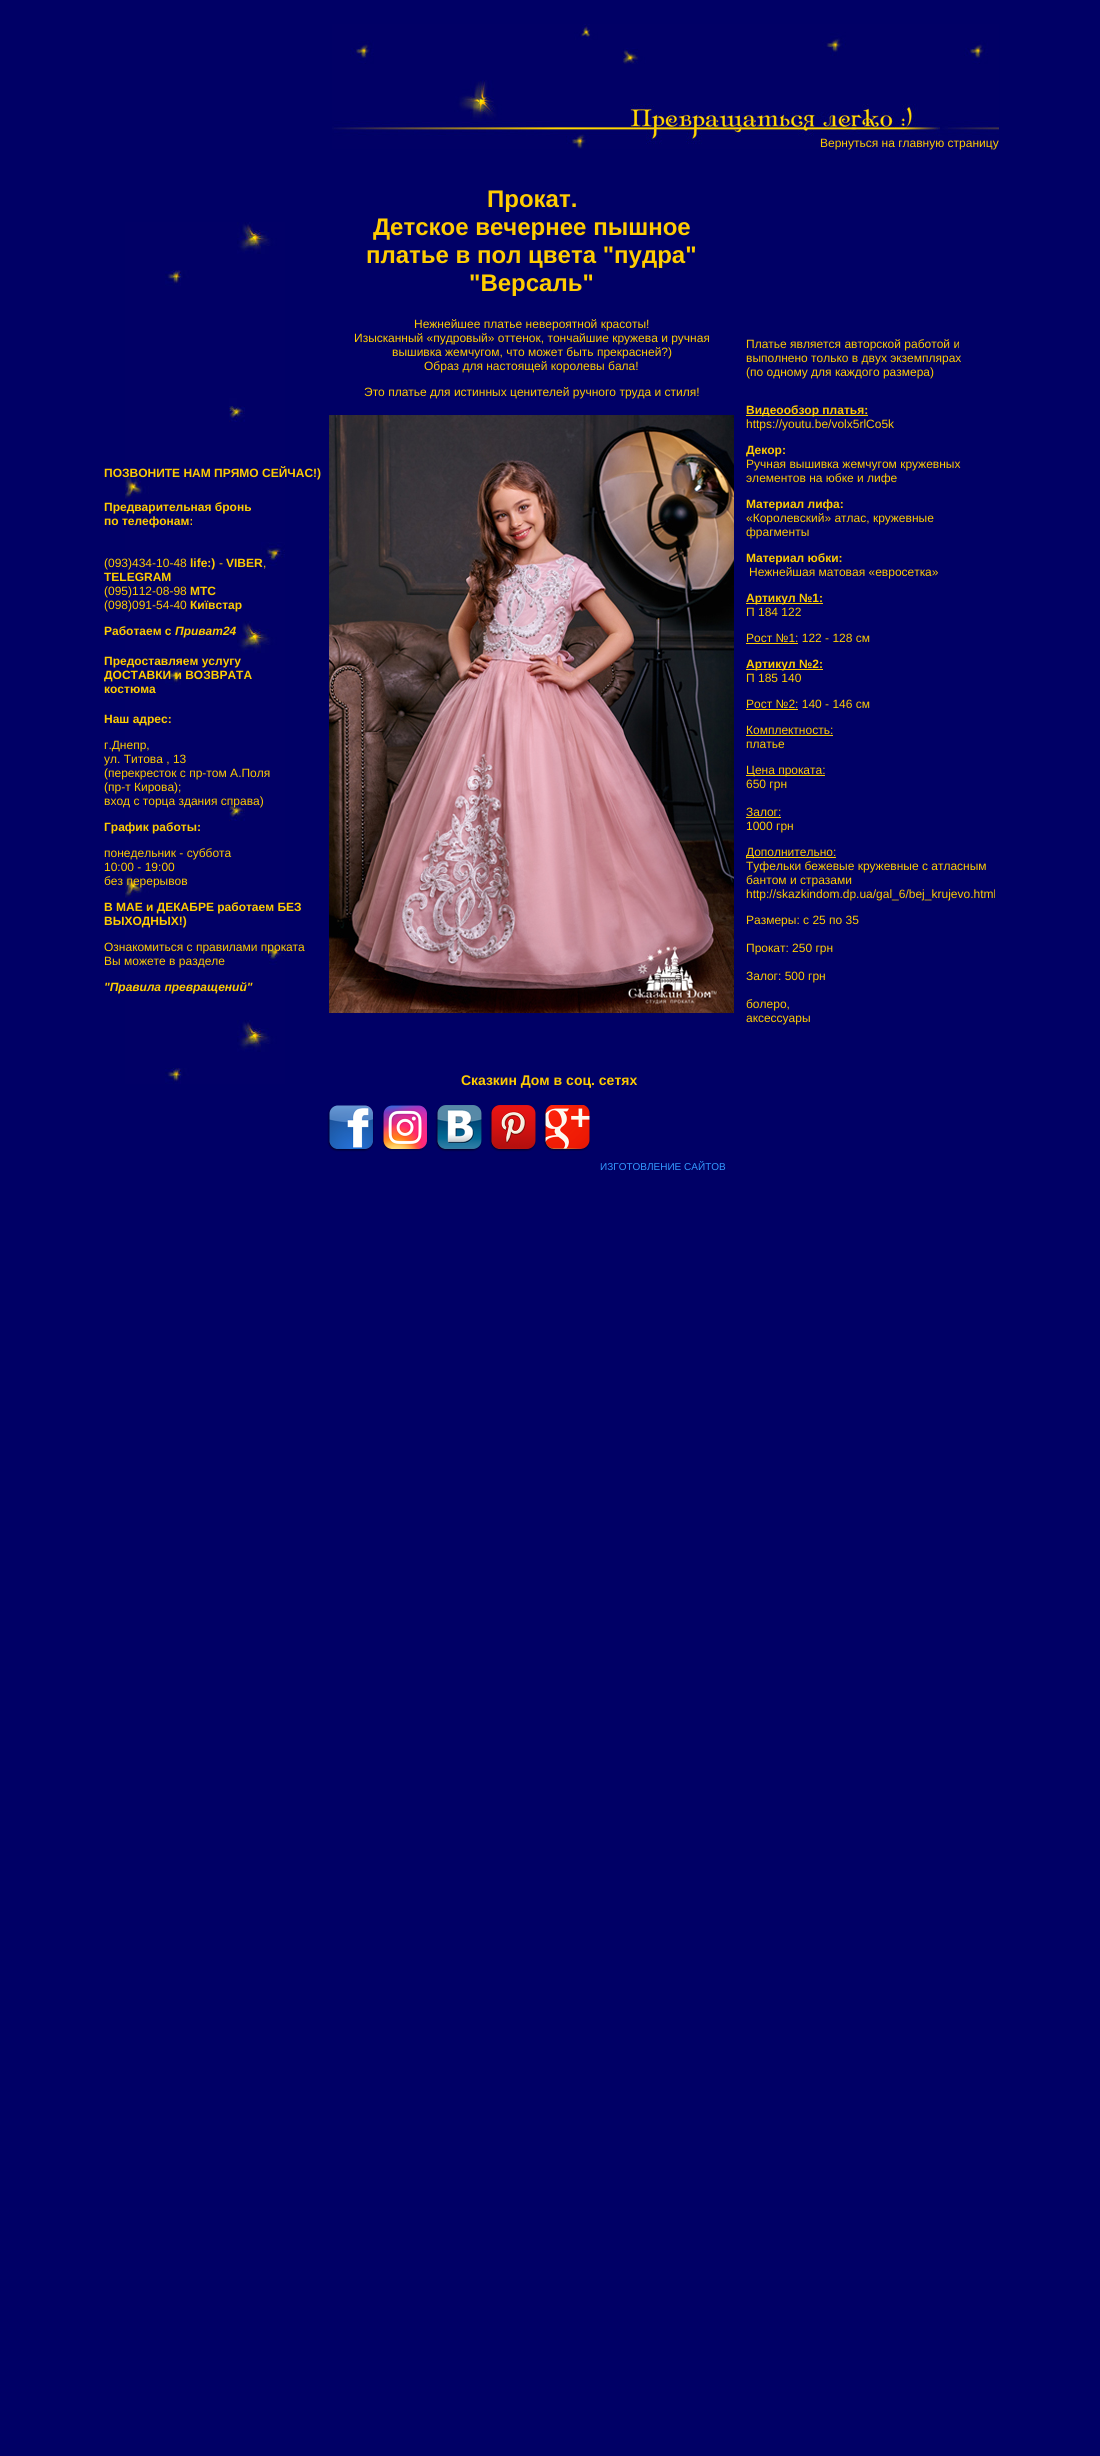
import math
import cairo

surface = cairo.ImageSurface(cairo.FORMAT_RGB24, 1100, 2456)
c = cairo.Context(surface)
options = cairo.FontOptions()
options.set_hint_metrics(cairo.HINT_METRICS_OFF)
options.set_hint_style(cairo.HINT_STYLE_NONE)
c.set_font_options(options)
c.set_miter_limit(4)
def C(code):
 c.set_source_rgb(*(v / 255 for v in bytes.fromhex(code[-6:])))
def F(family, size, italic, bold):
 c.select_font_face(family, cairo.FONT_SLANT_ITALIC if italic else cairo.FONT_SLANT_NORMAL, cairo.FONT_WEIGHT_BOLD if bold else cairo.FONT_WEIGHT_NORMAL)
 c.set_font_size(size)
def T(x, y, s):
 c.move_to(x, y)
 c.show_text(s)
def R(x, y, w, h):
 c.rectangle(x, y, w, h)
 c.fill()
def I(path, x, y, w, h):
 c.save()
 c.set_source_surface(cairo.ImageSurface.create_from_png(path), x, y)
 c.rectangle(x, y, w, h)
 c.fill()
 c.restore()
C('000066')
c.paint()
I('1.png',332,24,667,125)
F('Liberation Sans',12,0,0)
C('ffcc00')
T(820,147,'Вернуться на главную страницу')
I('2.png',125,222,160,862)
F('Liberation Sans',12,0,1)
T(104,477,'ПОЗВОНИТЕ НАМ ПРЯМО СЕЙЧАС!)')
T(104,511,'Предварительная бронь')
T(104,525,'по телефонам:')
F('Liberation Sans',12,0,0)
T(104,567,'(093)434-10-48')
F('Liberation Sans',12,0,1)
T(190,567,'life:)')
F('Liberation Sans',12,0,0)
T(219,567,'-')
F('Liberation Sans',12,0,1)
T(226,567,'VIBER')
F('Liberation Sans',12,0,0)
T(263,567,',')
F('Liberation Sans',12,0,1)
T(104,581,'TELEGRAM')
F('Liberation Sans',12,0,0)
T(104,595,'(095)112-08-98')
F('Liberation Sans',12,0,1)
T(190,595,'МТС')
F('Liberation Sans',12,0,0)
T(104,609,'(098)091-54-40')
F('Liberation Sans',12,0,1)
T(190,609,'Київстар')
T(104,635,'Работаем с')
F('Liberation Sans',12,1,1)
T(175,635,'Приват24')
F('Liberation Sans',12,0,1)
T(104,665,'Предоставляем услугу')
T(104,679,'ДОСТАВКИ и ВОЗВРАТА')
T(104,693,'костюма')
T(104,723,'Наш адрес:')
F('Liberation Sans',12,0,0)
T(104,749,'г.Днепр,')
T(104,763,'ул. Титова , 13')
T(104,777,'(перекресток с пр-том А.Поля')
T(104,791,'(пр-т Кирова);')
T(104,805,'вход с торца здания справа)')
F('Liberation Sans',12,0,1)
T(104,831,'График работы:')
F('Liberation Sans',12,0,0)
T(104,857,'понедельник - суббота')
T(104,871,'10:00 - 19:00')
T(104,885,'без перерывов')
F('Liberation Sans',12,0,1)
T(104,911,'В МАЕ и ДЕКАБРЕ работаем БЕЗ')
T(104,925,'ВЫХОДНЫХ!)')
F('Liberation Sans',12,0,0)
T(104,951,'Ознакомиться с правилами проката')
T(104,965,'Вы можете в разделе')
F('Liberation Sans',12,1,1)
T(104,991,'"Правила превращений"')
F('Liberation Sans',24,0,1)
T(487,207,'Прокат.')
T(373,235,'Детское вечернее пышное')
T(366,263,'платье в пол цвета "пудра"')
T(469,291,'"Версаль"')
F('Liberation Sans',12,0,0)
T(414,328,'Нежнейшее платье невероятной красоты!')
T(354,342,'Изысканный «пудровый» оттенок, тончайшие кружева и ручная')
T(392,356,'вышивка жемчугом, что может быть прекрасней?)')
T(424,370,'Образ для настоящей королевы бала!')
T(364,396,'Это платье для истинных ценителей ручного труда и стиля!')
T(746,348,'Платье является авторской работой и')
T(746,362,'выполнено только в двух экземплярах')
T(746,376,'(по одному для каждого размера)')
I('3.png',329,415,405,598)
R(746,415,122,1)
F('Liberation Sans',12,0,1)
T(746,414,'Видеообзор платья:')
F('Liberation Sans',12,0,0)
T(746,428,'https://youtu.be/volx5rlCo5k')
F('Liberation Sans',12,0,1)
T(746,454,'Декор:')
F('Liberation Sans',12,0,0)
T(746,468,'Ручная вышивка жемчугом кружевных')
T(746,482,'элементов на юбке и лифе')
F('Liberation Sans',12,0,1)
T(746,508,'Материал лифа:')
F('Liberation Sans',12,0,0)
T(746,522,'«Королевский» атлас, кружевные')
T(746,536,'фрагменты')
F('Liberation Sans',12,0,1)
T(746,562,'Материал юбки:')
F('Liberation Sans',12,0,0)
T(749,576,'Нежнейшая матовая «евросетка»')
R(746,603,77,1)
F('Liberation Sans',12,0,1)
T(746,602,'Артикул №1:')
F('Liberation Sans',12,0,0)
T(746,616,'П 184 122')
T(746,642,'Рост №1: 122 - 128 см')
R(746,643,52,1)
R(746,669,77,1)
F('Liberation Sans',12,0,1)
T(746,668,'Артикул №2:')
F('Liberation Sans',12,0,0)
T(746,682,'П 185 140')
T(746,708,'Рост №2: 140 - 146 см')
R(746,709,52,1)
T(746,734,'Комплектность:')
R(746,735,87,1)
T(746,748,'платье')
R(746,775,79,1)
T(746,774,'Цена проката:')
T(746,788,'650 грн')
T(746,816,'Залог:')
R(746,817,35,1)
T(746,830,'1000 грн')
R(746,857,90,1)
T(746,856,'Дополнительно:')
T(746,870,'Туфельки бежевые кружевные с атласным')
T(746,884,'бантом и стразами')
T(746,898,'http://skazkindom.dp.ua/gal_6/bej_krujevo.html')
T(746,924,'Размеры: с 25 по 35')
T(746,952,'Прокат: 250 грн')
T(746,980,'Залог: 500 грн')
T(746,1008,'болеро,')
T(746,1022,'аксессуары')
F('Liberation Sans',14,0,1)
T(461,1085,'Сказкин Дом в соц. сетях')
I('4.png',327,1105,47,47)
I('5.png',382,1105,46,46)
I('6.png',435,1105,47,47)
I('7.png',489,1105,47,47)
I('8.png',543,1105,47,46)
F('Liberation Sans',10,0,0)
C('3399ff')
T(600,1170,'ИЗГОТОВЛЕНИЕ САЙТОВ')
surface.write_to_png('o.png')
